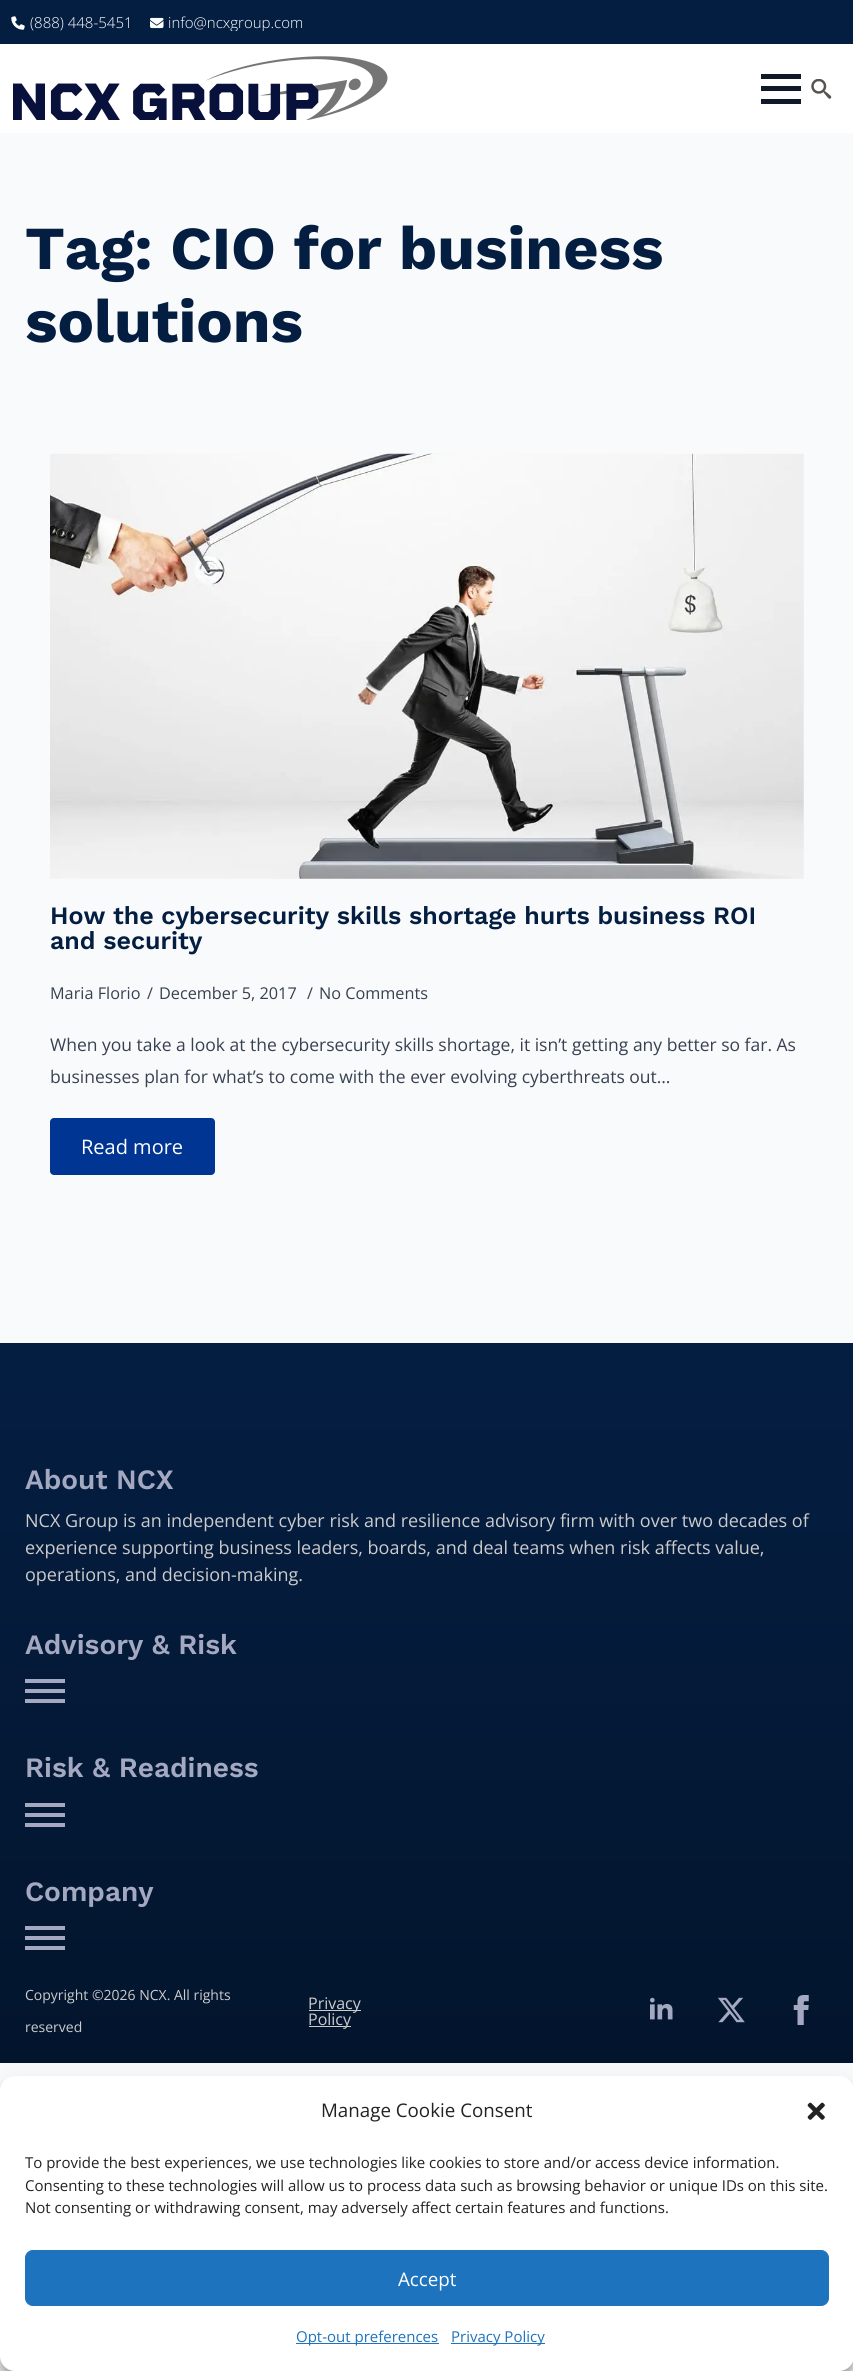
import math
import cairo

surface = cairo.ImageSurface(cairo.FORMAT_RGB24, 853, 2371)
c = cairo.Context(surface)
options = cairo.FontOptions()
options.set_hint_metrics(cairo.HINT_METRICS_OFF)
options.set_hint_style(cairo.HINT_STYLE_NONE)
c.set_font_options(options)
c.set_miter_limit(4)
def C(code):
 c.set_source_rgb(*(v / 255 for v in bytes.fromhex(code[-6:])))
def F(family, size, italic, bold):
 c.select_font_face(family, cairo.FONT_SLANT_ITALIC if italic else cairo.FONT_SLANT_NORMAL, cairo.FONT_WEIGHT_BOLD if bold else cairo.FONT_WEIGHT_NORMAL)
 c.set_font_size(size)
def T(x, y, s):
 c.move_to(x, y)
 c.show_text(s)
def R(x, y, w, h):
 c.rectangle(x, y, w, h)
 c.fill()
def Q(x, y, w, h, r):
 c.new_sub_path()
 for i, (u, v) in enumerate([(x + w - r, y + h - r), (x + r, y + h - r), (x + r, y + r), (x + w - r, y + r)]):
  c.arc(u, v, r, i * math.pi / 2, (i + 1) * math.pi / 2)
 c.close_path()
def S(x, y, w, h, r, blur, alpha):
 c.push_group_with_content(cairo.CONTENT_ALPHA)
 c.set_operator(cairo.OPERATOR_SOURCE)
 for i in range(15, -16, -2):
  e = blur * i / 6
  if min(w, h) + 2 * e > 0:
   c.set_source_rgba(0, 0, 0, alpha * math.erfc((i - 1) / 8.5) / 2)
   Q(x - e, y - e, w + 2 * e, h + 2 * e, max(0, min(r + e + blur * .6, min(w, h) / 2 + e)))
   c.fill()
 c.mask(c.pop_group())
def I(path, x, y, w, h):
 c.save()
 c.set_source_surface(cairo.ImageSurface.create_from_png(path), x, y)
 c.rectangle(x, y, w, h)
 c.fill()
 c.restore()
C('f9fafb')
c.paint()
C('041e42')
R(0,0,853,44)
I('1.png',11,16,14,14)
F('Open Sans Light',15,0,0)
C('ffffff')
T(30,28,'(888) 448-5451')
I('2.png',150,17,14,12)
c.save()
Q(140,16,169,15,2.5)
c.clip()
T(168,28,'info@ncxgroup.com')
c.restore()
R(0,44,853,89)
I('3.png',13,56,375,64)
C('111827')
R(761,86,40,5)
R(761,74,40,5)
R(761,99,40,5)
I('4.png',811,79,21,20)
F('Work Sans',61,0,1)
C('041e42')
T(25,269,'Tag: CIO for business')
T(25,342,'solutions')
I('5.png',50,453,754,426)
F('Work Sans SemiBold',25,0,0)
T(50,924,'How the cybersecurity skills shortage hurts business ROI')
T(50,949,'and security')
F('Open Sans',16.25,0,0)
C('374151')
T(50,999,'Maria Florio')
T(147,999,'/')
T(159,999,'December 5, 2017')
T(307,999,'/')
T(319,999,'No Comments')
F('Open Sans',17.5,0,0)
T(50,1051,'When you take a look at the cybersecurity skills shortage, it isn’t getting any better so far. As')
T(50,1083,'businesses plan for what’s to come with the ever evolving cyberthreats out…')
C('003594')
Q(50,1118,165,57,4)
c.fill()
F('Open Sans',20,0,0)
C('ffffff')
T(81,1154,'Read more')
gradient = cairo.LinearGradient(427,1343,427,2063)
gradient.add_color_stop_rgba(0,0.016,0.118,0.259,1)
gradient.add_color_stop_rgba(1,0.012,0.082,0.176,1)
c.set_source(gradient)
R(0,1343,853,720)
F('Work Sans SemiBold',28,0,0)
C('a4a9c1')
T(25,1489,'About NCX')
F('Open Sans',18,0,0)
C('cdcbcb')
T(25,1527,'NCX Group is an independent cyber risk and resilience advisory firm with over two decades of')
T(25,1554,'experience supporting business leaders, boards, and deal teams when risk affects value,')
T(25,1581,'operations, and decision-making.')
F('Work Sans SemiBold',28,0,0)
C('a4a9c1')
T(25,1654,'Advisory & Risk')
R(25,1689,40,4)
R(25,1679,40,4)
R(25,1699,40,4)
T(25,1777,'Risk & Readiness')
R(25,1813,40,4)
R(25,1803,40,4)
R(25,1823,40,4)
T(25,1901,'Company')
R(25,1936,40,4)
R(25,1926,40,4)
R(25,1946,40,4)
F('Open Sans',14,0,0)
C('cdcbcb')
T(25,2000,'Copyright ©2026 NCX. All rights')
T(25,2032,'reserved')
R(309,2010,52,1)
F('Open Sans',16,0,0)
T(308,2009,'Privacy')
R(309,2026,42,1)
T(308,2025,'Policy')
I('6.png',650,1997,23,23)
I('7.png',718,1997,27,26)
I('8.png',793,1995,16,30)
C('000000')
S(0,2084,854,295,15,4,.23)
S(0,2089,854,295,15,12.5,.19)
C('ffffff')
Q(0,2076,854,295,15)
c.fill()
F('Open Sans',18.75,0,0)
C('222222')
T(321,2117,'Manage Cookie Consent')
I('9.png',807,2102,18,18)
F('Open Sans',15,0,0)
T(25,2168,'To provide the best experiences, we use technologies like cookies to store and/or access device information.')
T(25,2191,'Consenting to these technologies will allow us to process data such as browsing behavior or unique IDs on this site.')
T(25,2213,'Not consenting or withdrawing consent, may adversely affect certain features and functions.')
C('1e73be')
Q(25.5,2250.5,803,55,7.5)
c.fill_preserve()
c.set_line_width(1)
c.stroke()
F('Open Sans',18.75,0,0)
C('ffffff')
T(398,2286,'Accept')
C('1e73be')
R(296,2343,143,1)
F('Open Sans',15,0,0)
T(296,2342,'Opt-out preferences')
R(451,2343,94,1)
T(451,2342,'Privacy Policy')
surface.write_to_png('o.png')
